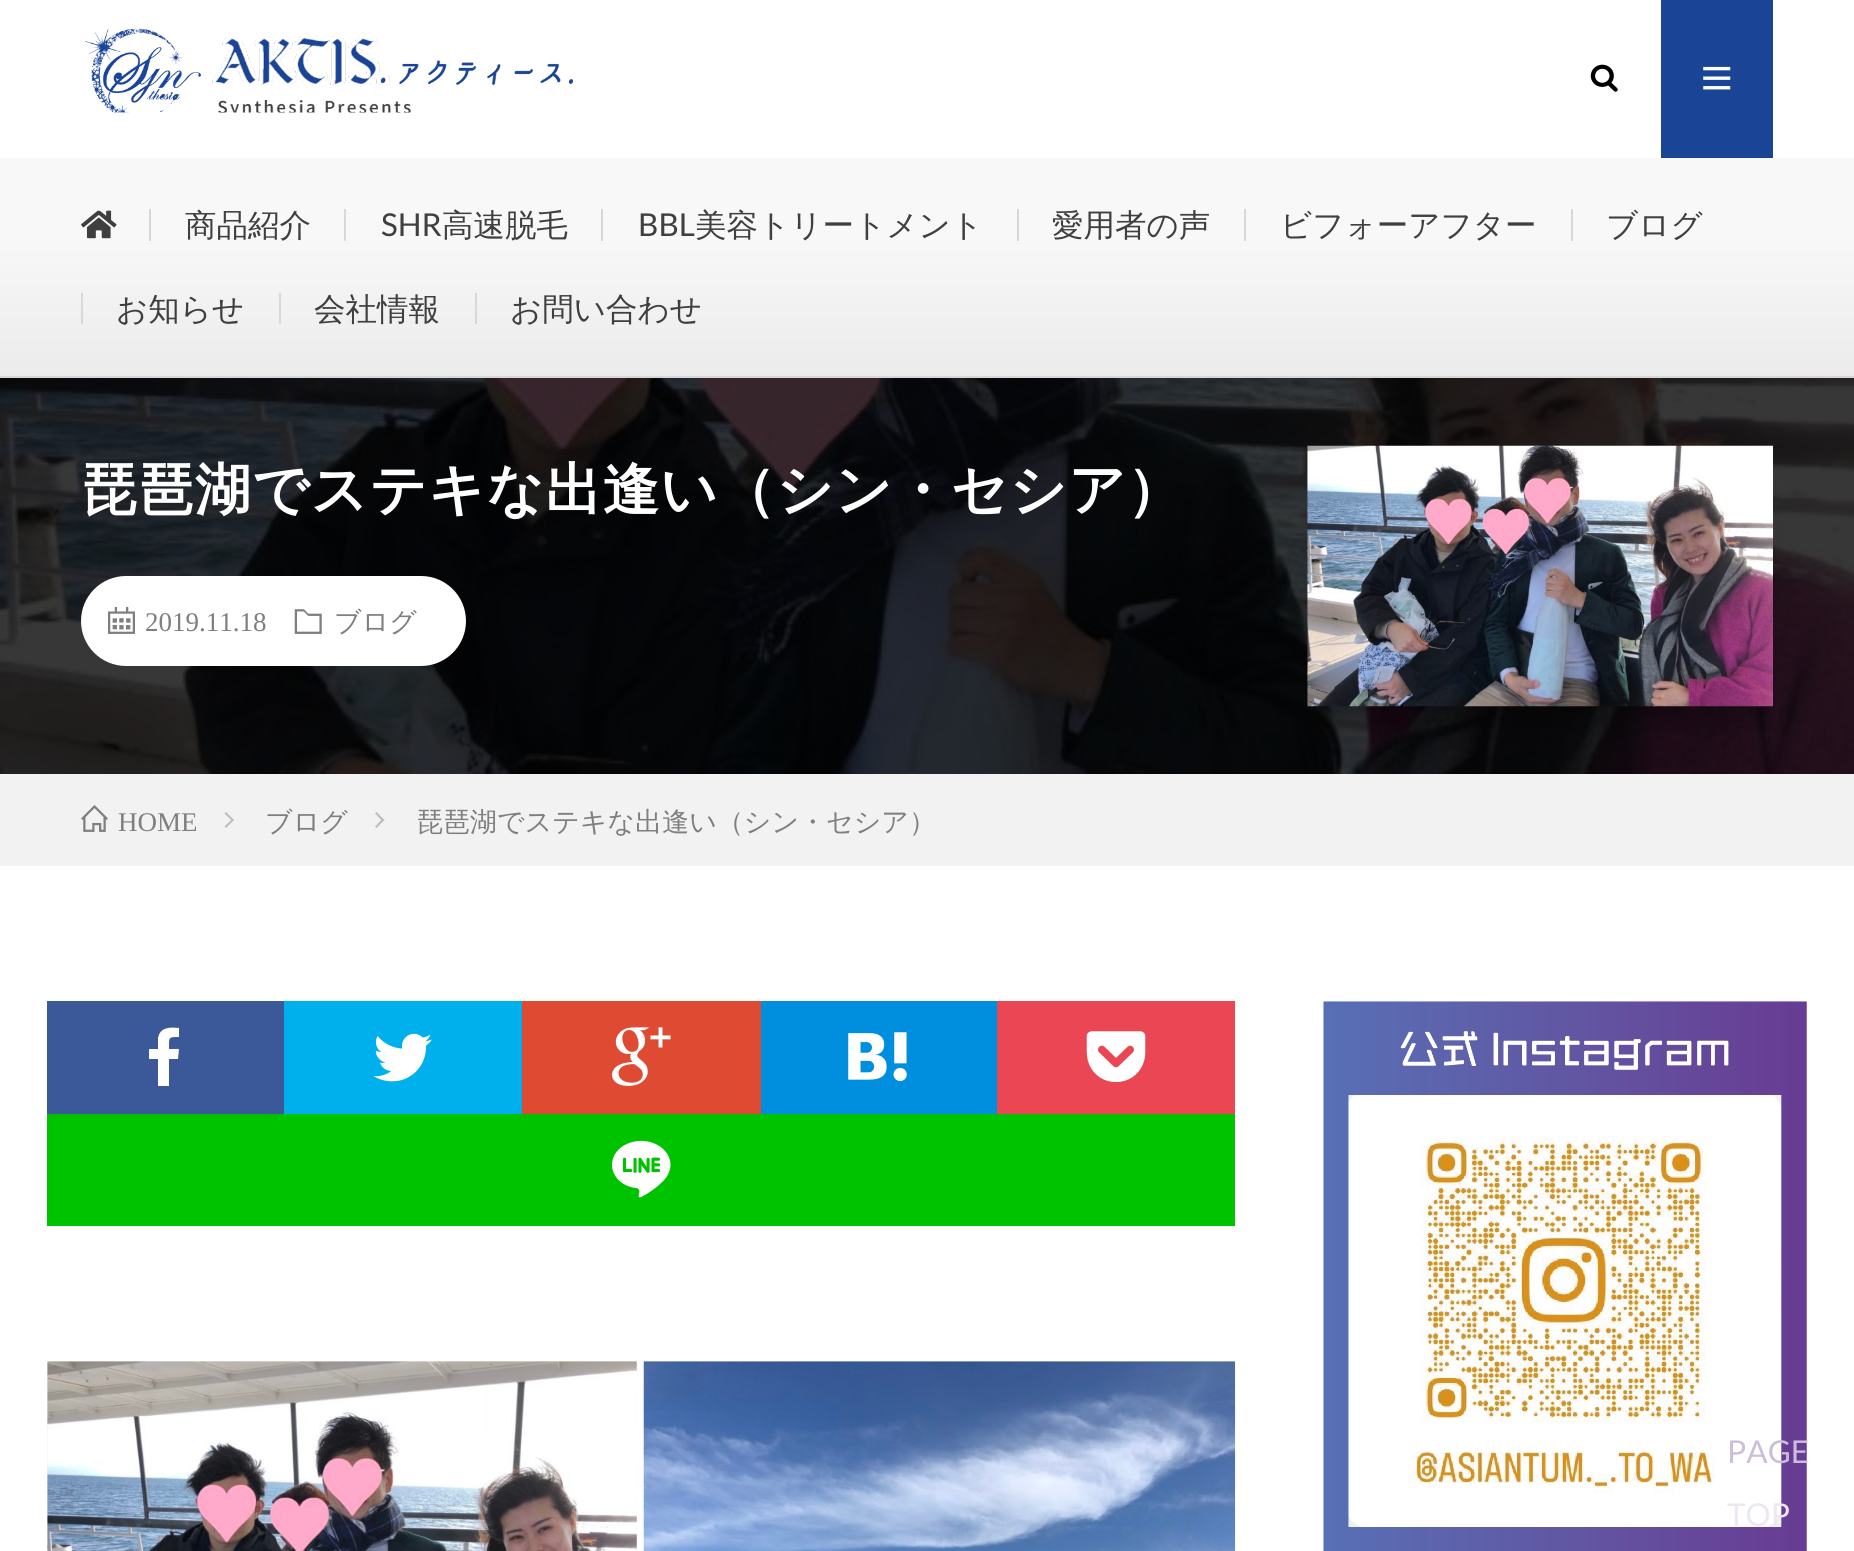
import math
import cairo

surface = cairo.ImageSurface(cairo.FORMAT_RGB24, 1854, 1551)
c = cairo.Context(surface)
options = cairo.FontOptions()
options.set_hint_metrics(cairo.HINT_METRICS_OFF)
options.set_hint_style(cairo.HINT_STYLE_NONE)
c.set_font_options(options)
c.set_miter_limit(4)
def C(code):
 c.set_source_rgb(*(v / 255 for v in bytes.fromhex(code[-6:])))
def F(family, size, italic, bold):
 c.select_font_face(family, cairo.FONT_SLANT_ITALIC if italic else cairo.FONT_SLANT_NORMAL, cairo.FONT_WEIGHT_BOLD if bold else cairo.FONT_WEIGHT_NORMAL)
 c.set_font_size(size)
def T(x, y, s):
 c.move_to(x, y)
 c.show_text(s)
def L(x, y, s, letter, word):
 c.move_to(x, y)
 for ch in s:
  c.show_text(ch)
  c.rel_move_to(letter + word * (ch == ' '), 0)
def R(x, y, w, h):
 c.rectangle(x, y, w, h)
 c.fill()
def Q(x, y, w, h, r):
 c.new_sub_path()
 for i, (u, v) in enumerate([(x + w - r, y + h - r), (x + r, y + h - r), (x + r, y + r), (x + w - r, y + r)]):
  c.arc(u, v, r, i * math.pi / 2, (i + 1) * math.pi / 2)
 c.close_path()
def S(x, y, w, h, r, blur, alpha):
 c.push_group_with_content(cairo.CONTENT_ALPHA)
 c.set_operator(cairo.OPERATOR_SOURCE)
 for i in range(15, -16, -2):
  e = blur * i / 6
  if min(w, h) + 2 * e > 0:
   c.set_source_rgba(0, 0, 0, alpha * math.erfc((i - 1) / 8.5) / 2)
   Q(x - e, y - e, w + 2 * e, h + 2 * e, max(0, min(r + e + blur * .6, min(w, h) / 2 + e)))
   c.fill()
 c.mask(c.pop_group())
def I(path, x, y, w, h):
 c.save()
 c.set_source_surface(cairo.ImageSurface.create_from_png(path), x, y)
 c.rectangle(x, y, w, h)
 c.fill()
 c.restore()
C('ffffff')
c.paint()
I('1.png',85,28,488,85)
I('2.png',1590,64,28,28)
C('1a4596')
R(1661,0,112,158)
I('3.png',1703,66,28,24)
C('d8d8d8')
R(0,376,1854,2)
gradient = cairo.LinearGradient(927,157,927,376)
gradient.add_color_stop_rgba(0,0.973,0.973,0.973,1)
gradient.add_color_stop_rgba(.35,0.973,0.973,0.973,1)
gradient.add_color_stop_rgba(1,0.922,0.922,0.922,1)
c.set_source(gradient)
R(0,158,1854,218)
I('4.png',81,210,36,29)
C('d8d8d8')
R(149,209,2,32)
F('WenQuanYi Zen Hei Medium',31.5,0,0)
C('3f3f3f')
T(185,236,'商品紹介')
C('d8d8d8')
R(344,209,2,32)
F('Lato',31.5,0,0)
C('3f3f3f')
T(381,236,'SHR')
F('WenQuanYi Zen Hei Medium',31.5,0,0)
T(442,236,'高速脱毛')
C('d8d8d8')
R(601,209,2,32)
F('Lato',31.5,0,0)
C('3f3f3f')
T(638,236,'BBL')
F('WenQuanYi Zen Hei Medium',31.5,0,0)
T(695,236,'美容トリートメント')
C('d8d8d8')
R(1017,209,2,32)
C('3f3f3f')
T(1052,236,'愛用者の声')
C('d8d8d8')
R(1244,209,2,32)
C('3f3f3f')
T(1280,236,'ビフォーアフター')
C('d8d8d8')
R(1571,209,2,32)
C('3f3f3f')
T(1606,236,'ブログ')
C('d8d8d8')
R(81,293,2,31)
C('3f3f3f')
T(116,320,'お知らせ')
C('d8d8d8')
R(279,293,2,31)
C('3f3f3f')
T(314,320,'会社情報')
C('d8d8d8')
R(475,293,2,31)
C('3f3f3f')
T(510,320,'お問い合わせ')
I('5.png',0,378,1854,396)
F('WenQuanYi Zen Hei',56.25,0,1)
C('ffffff')
L(80,509,'琵琶湖でステキな出逢い（シン・セシア）',1.1,0)
Q(81,576,385,90,45)
c.fill()
I('6.png',108,606,27,28)
F('Liberation Serif',27,0,0)
C('7f7f7f')
T(145,631,'2019.11.18')
I('7.png',294,609,28,25)
F('WenQuanYi Zen Hei Medium',27,0,0)
T(334,631,'ブログ')
C('000000')
S(1321,486,439,234,0,11,.25)
I('8.png',1307,445,466,262)
C('f2f2f2')
R(0,774,1854,92)
I('9.png',81,805,27,27)
F('Liberation Serif',27,0,0)
C('7f7f7f')
T(118,831,'HOME')
C('bfbfbf')
c.new_path()
c.move_to(226,812)
c.line_to(234,820)
c.line_to(232.5,821.5)
c.line_to(224.5,813.5)
c.close_path()
c.fill()
c.new_path()
c.move_to(232.5,818.5)
c.line_to(234,820)
c.line_to(226,828)
c.line_to(224.5,826.5)
c.close_path()
c.fill()
F('WenQuanYi Zen Hei Medium',27,0,0)
C('7f7f7f')
T(265,831,'ブログ')
C('bfbfbf')
c.new_path()
c.move_to(376.5,812)
c.line_to(384.5,820)
c.line_to(382.5,821.5)
c.line_to(375,813.5)
c.close_path()
c.fill()
c.new_path()
c.move_to(382.5,818.5)
c.line_to(384.5,820)
c.line_to(376.5,828)
c.line_to(375,826.5)
c.close_path()
c.fill()
C('7f7f7f')
T(416,831,'琵琶湖でステキな出逢い（シン・セシア）')
C('3b5998')
R(47,1001,237,113)
C('ffffff')
c.new_path()
c.move_to(178,1059)
c.line_to(179,1049)
c.line_to(169,1049)
c.curve_to(169,1037,168,1037,179,1037)
c.line_to(179,1028)
c.curve_to(170,1027,160,1027,158,1038)
c.line_to(158,1049)
c.line_to(149,1049)
c.line_to(149,1059)
c.line_to(158,1059)
c.line_to(158,1086)
c.line_to(169,1086)
c.line_to(169,1059)
c.close_path()
c.fill()
C('00b0ed')
R(284,1001,238,113)
I('10.png',373,1033,59,49)
C('df4a32')
R(522,1001,239,113)
I('11.png',612,1027,59,59)
C('008fde')
R(761,1001,236,113)
I('12.png',848,1032,59,50)
C('eb4654')
R(997,1001,238,113)
I('13.png',1086,1031,60,51)
C('00c300')
R(47,1114,1188,112)
I('14.png',612,1140,59,58)
C('f0f0f0')
R(47,1361,590,190)
I('15.png',47,1361,590,190)
R(644,1361,591,1)
I('16.png',643,1361,593,190)
I('17.png',1323,1001,484,550)
F('Lato',31.5,0,0)
C('ccbedb')
T(1727,1463,'PAGE')
C('ece7f1')
T(1727,1526,'TOP')
surface.write_to_png('o.png')
